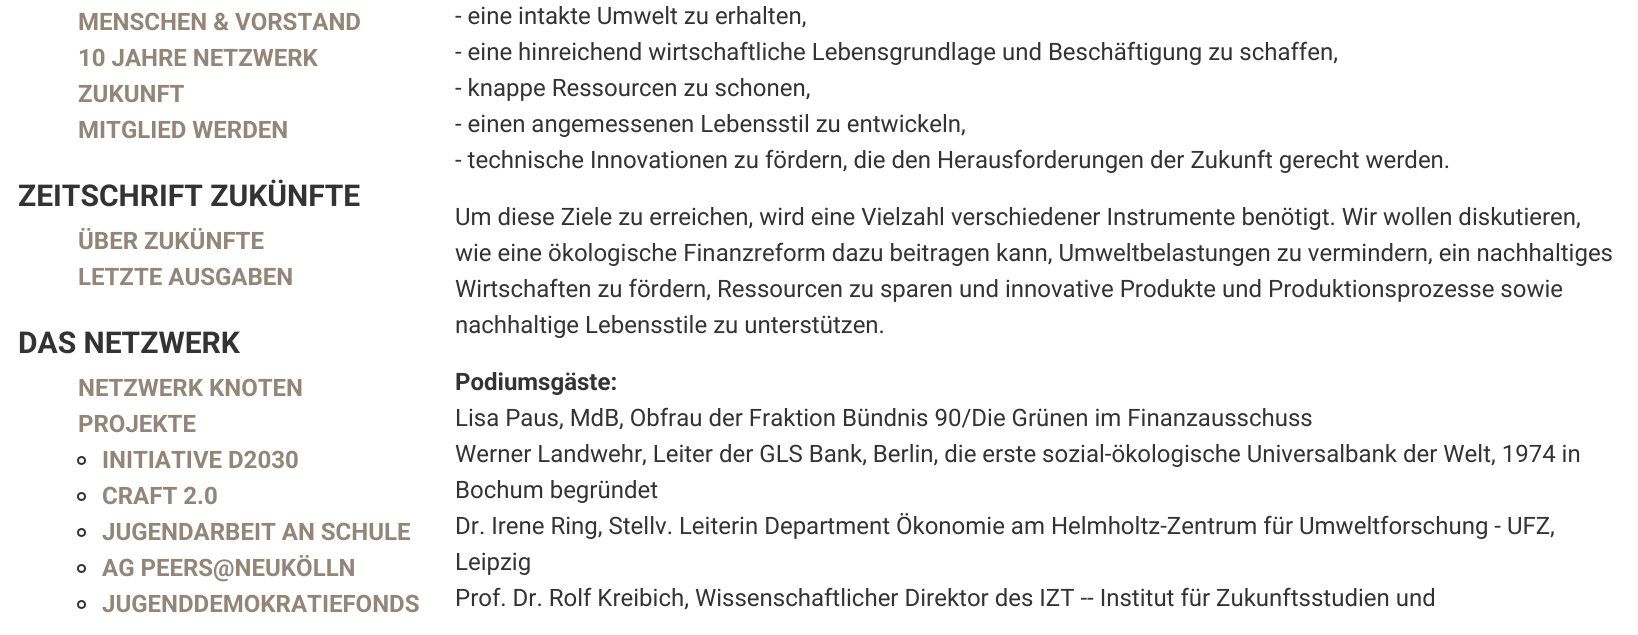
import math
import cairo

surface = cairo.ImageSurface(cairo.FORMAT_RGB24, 1638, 635)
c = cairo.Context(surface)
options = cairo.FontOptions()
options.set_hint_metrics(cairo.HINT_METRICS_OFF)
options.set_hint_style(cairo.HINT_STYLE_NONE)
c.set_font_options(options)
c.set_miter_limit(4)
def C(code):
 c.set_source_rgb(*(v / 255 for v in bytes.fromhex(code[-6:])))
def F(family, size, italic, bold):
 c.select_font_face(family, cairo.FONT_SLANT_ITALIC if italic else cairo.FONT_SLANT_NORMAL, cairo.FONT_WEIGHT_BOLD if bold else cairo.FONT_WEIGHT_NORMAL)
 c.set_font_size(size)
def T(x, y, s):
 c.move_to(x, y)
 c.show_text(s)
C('ffffff')
c.paint()
F('Roboto',24,0,1)
C('938577')
T(78,30,'MENSCHEN & VORSTAND')
T(78,66,'10 JAHRE NETZWERK')
T(78,102,'ZUKUNFT')
T(78,138,'MITGLIED WERDEN')
F('Roboto',30,0,1)
C('333333')
T(18,206,'ZEITSCHRIFT ZUKÜNFTE')
F('Roboto',24,0,1)
C('938577')
T(78,249,'ÜBER ZUKÜNFTE')
T(78,285,'LETZTE AUSGABEN')
F('Roboto',30,0,1)
C('333333')
T(18,353,'DAS NETZWERK')
F('Roboto',24,0,1)
C('938577')
T(78,396,'NETZWERK KNOTEN')
T(78,432,'PROJEKTE')
c.new_path()
c.arc(81.5,460.5,3.5,0,2 * math.pi)
C('333333')
c.stroke()
C('938577')
T(102,468,'INITIATIVE D2030')
c.new_path()
c.arc(81.5,496.5,3.5,0,2 * math.pi)
C('333333')
c.stroke()
C('938577')
T(102,504,'CRAFT 2.0')
c.new_path()
c.arc(81.5,532.5,3.5,0,2 * math.pi)
C('333333')
c.stroke()
C('938577')
T(102,540,'JUGENDARBEIT AN SCHULE')
c.new_path()
c.arc(81.5,568.5,3.5,0,2 * math.pi)
C('333333')
c.stroke()
C('938577')
T(102,576,'AG PEERS@NEUKÖLLN')
c.new_path()
c.arc(81.5,604.5,3.5,0,2 * math.pi)
C('333333')
c.stroke()
C('938577')
T(102,612,'JUGENDDEMOKRATIEFONDS')
F('Roboto',24,0,0)
C('333333')
T(455,24,'- eine intakte Umwelt zu erhalten,')
T(455,60,'- eine hinreichend wirtschaftliche Lebensgrundlage und Beschäftigung zu schaffen,')
T(455,96,'- knappe Ressourcen zu schonen,')
T(455,132,'- einen angemessenen Lebensstil zu entwickeln,')
T(455,168,'- technische Innovationen zu fördern, die den Herausforderungen der Zukunft gerecht werden.')
T(455,225,'Um diese Ziele zu erreichen, wird eine Vielzahl verschiedener Instrumente benötigt. Wir wollen diskutieren,')
T(455,261,'wie eine ökologische Finanzreform dazu beitragen kann, Umweltbelastungen zu vermindern, ein nachhaltiges')
T(455,297,'Wirtschaften zu fördern, Ressourcen zu sparen und innovative Produkte und Produktionsprozesse sowie')
T(455,333,'nachhaltige Lebensstile zu unterstützen.')
F('Roboto',24,0,1)
T(455,390,'Podiumsgäste:')
F('Roboto',24,0,0)
T(455,426,'Lisa Paus, MdB, Obfrau der Fraktion Bündnis 90/Die Grünen im Finanzausschuss')
T(455,462,'Werner Landwehr, Leiter der GLS Bank, Berlin, die erste sozial-ökologische Universalbank der Welt, 1974 in')
T(455,498,'Bochum begründet')
T(455,534,'Dr. Irene Ring, Stellv. Leiterin Department Ökonomie am Helmholtz-Zentrum für Umweltforschung - UFZ,')
T(455,570,'Leipzig')
T(455,606,'Prof. Dr. Rolf Kreibich, Wissenschaftlicher Direktor des IZT -- Institut für Zukunftsstudien und')
surface.write_to_png('o.png')
